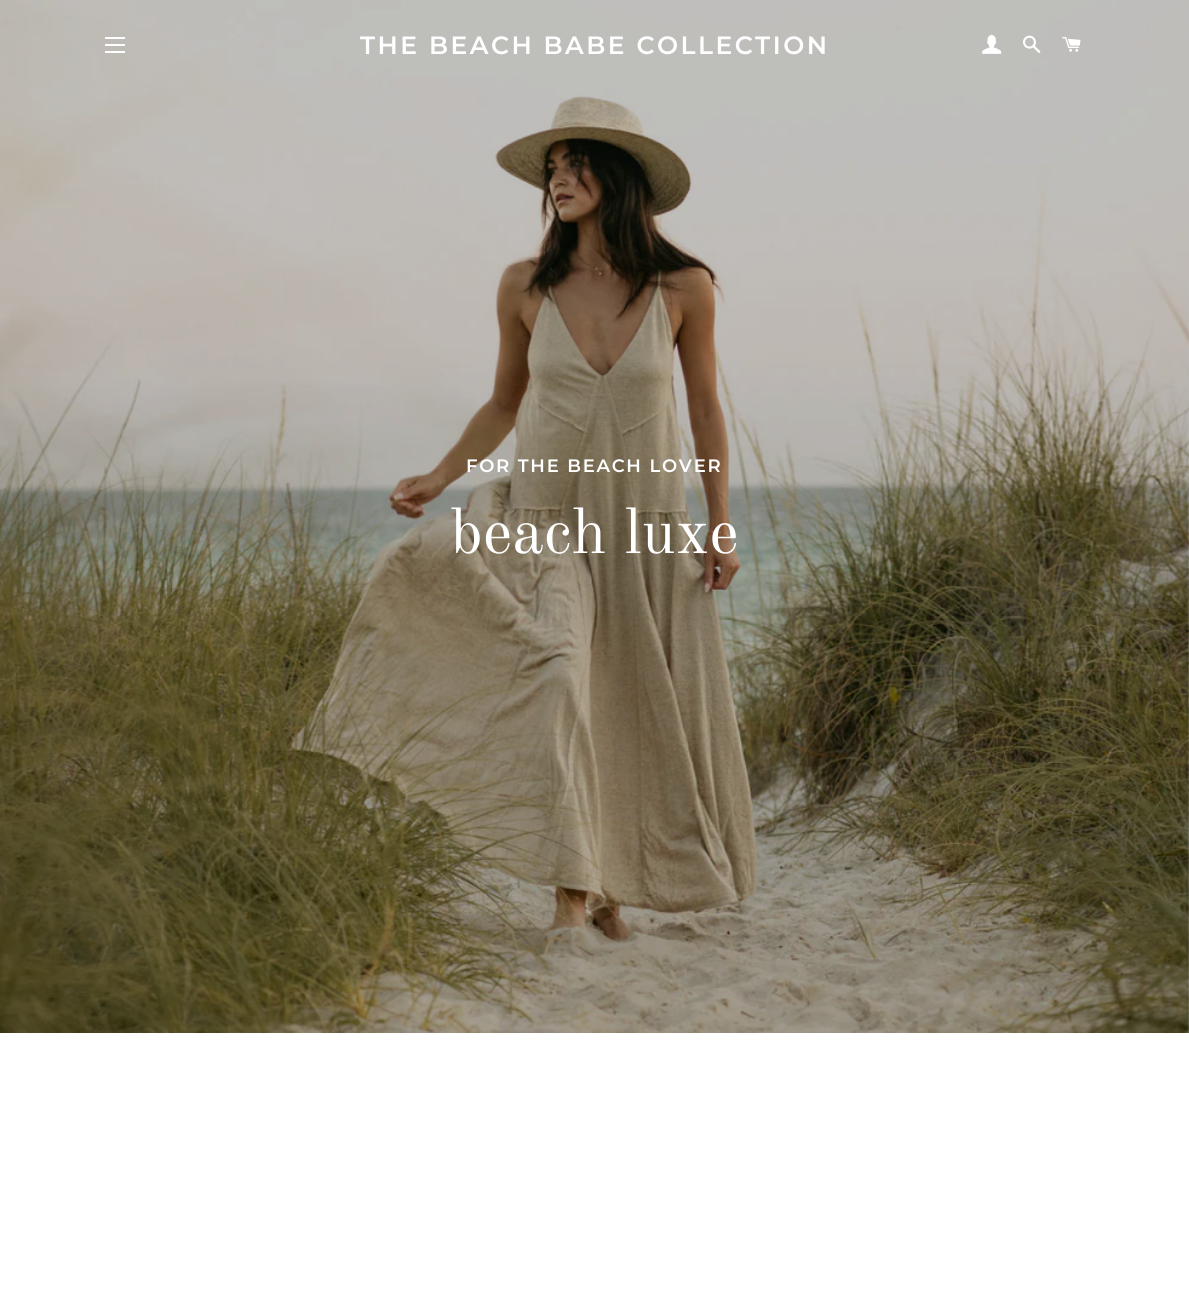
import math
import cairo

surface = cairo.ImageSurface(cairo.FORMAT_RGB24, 1189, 1291)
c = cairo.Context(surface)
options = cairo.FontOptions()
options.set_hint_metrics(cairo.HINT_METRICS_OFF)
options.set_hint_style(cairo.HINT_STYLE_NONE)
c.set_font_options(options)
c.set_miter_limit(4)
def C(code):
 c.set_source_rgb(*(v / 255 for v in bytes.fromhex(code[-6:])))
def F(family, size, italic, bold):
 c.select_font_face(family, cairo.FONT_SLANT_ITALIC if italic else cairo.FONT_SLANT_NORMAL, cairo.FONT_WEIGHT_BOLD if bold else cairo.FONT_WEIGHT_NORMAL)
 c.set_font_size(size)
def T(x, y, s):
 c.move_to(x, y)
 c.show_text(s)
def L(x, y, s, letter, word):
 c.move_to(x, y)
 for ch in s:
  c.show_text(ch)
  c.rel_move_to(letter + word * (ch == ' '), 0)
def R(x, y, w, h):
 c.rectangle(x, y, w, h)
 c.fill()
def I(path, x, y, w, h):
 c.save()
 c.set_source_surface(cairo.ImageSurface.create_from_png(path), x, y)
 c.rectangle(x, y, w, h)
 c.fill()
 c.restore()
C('ffffff')
c.paint()
I('4.png',0,0,1189,1033)
gradient = cairo.LinearGradient(594,0,595,1291)
gradient.add_color_stop_rgba(0,0,0,0,.25)
gradient.add_color_stop_rgba(.88,0,0,0,.25)
gradient.add_color_stop_rgba(.95,0,0,0,.38)
gradient.add_color_stop_rgba(1,0,0,0,.5)
c.set_source(gradient)
R(0,0,1189,1033)
C('ffffff')
R(105,37,20,2)
R(105,44,20,2)
R(105,51,20,2)
F('Montserrat SemiBold',25,0,0)
L(360,54,'THE BEACH BABE COLLECTION',2.5,0)
I('1.png',982,34,20,20)
I('2.png',1023,35,18,18)
I('3.png',1062,37,19,15)
F('Montserrat SemiBold',18,0,0)
L(466,472,'FOR THE BEACH LOVER',1.75,0)
F('Old Standard TT',64,0,0)
T(450,553,'beach luxe')
surface.write_to_png('o.png')
